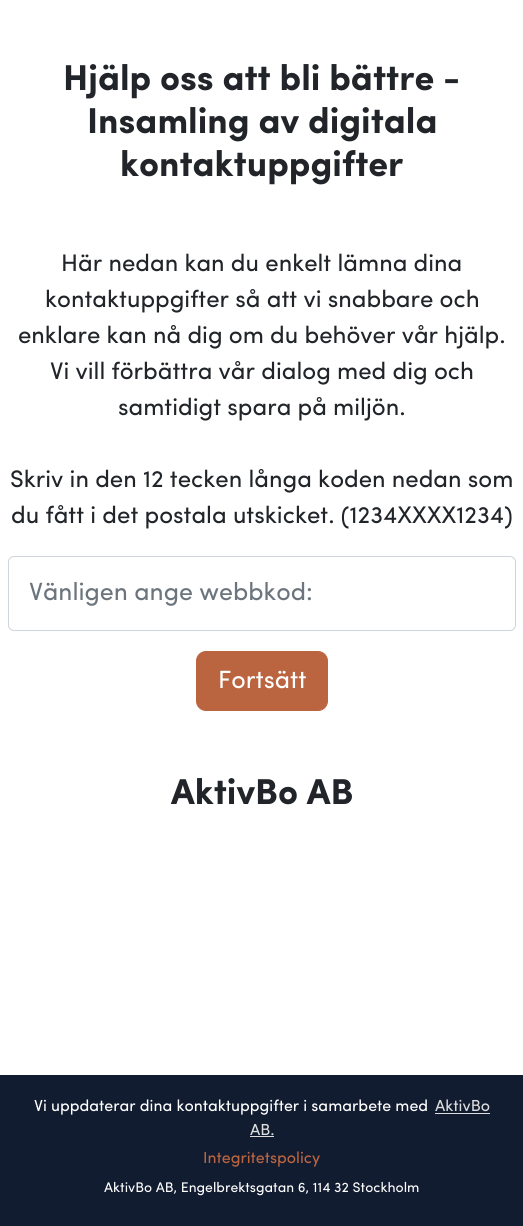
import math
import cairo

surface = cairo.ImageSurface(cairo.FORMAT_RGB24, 523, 1226)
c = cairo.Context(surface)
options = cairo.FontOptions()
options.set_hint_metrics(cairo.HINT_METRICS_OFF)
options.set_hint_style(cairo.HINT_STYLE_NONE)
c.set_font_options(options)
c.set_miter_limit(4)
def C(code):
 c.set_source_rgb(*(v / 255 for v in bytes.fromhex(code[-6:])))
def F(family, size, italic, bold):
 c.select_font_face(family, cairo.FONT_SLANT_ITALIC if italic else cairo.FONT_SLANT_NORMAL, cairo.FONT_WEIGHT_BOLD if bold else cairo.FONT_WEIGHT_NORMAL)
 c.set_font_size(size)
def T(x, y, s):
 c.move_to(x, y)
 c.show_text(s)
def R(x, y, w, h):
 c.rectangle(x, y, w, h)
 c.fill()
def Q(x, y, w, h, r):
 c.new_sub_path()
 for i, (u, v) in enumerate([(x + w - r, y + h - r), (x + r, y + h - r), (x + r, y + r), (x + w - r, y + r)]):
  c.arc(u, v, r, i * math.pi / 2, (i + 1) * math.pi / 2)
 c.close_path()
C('ffffff')
c.paint()
F('Sofia',36,0,1)
C('212529')
T(63,90,'Hjälp oss att bli bättre -')
T(87,133,'Insamling av digitala')
T(120,176,'kontaktuppgifter')
F('Sofia',24,0,0)
T(61,271,'Här nedan kan du enkelt lämna dina')
T(45,307,'kontaktuppgifter så att vi snabbare och')
T(18,343,'enklare kan nå dig om du behöver vår hjälp.')
T(50,379,'Vi vill förbättra vår dialog med dig och')
T(118,415,'samtidigt spara på miljön.')
T(10,487,'Skriv in den 12 tecken långa koden nedan som')
T(11,523,'du fått i det postala utskicket. (1234XXXX1234)')
Q(8.5,556.5,507,74,5.5)
C('ced4da')
c.set_line_width(1)
c.stroke()
F('Sofia',25,0,0)
C('6c757d')
T(29,600,'Vänligen ange webbkod:')
C('bb6540')
Q(196.5,651.5,131,59,9.5)
c.fill_preserve()
c.stroke()
C('ffffff')
T(218,688,'Fortsätt')
F('Sofia',36,0,1)
C('212529')
T(171,804,'AktivBo AB')
C('121c31')
R(0,1075,523,151)
F('Sofia',16,0,0)
C('ffffff')
T(34,1111,'Vi uppdaterar dina kontaktuppgifter i samarbete med')
C('dddddd')
T(435,1111,'AktivBo')
R(435,1113,55,1)
T(250,1135,'AB.')
R(250,1136,24,1)
C('bb6540')
T(203,1163,'Integritetspolicy')
F('Sofia',14,0,0)
C('ffffff')
T(104,1192,'AktivBo AB, Engelbrektsgatan 6, 114 32 Stockholm')
surface.write_to_png('o.png')
